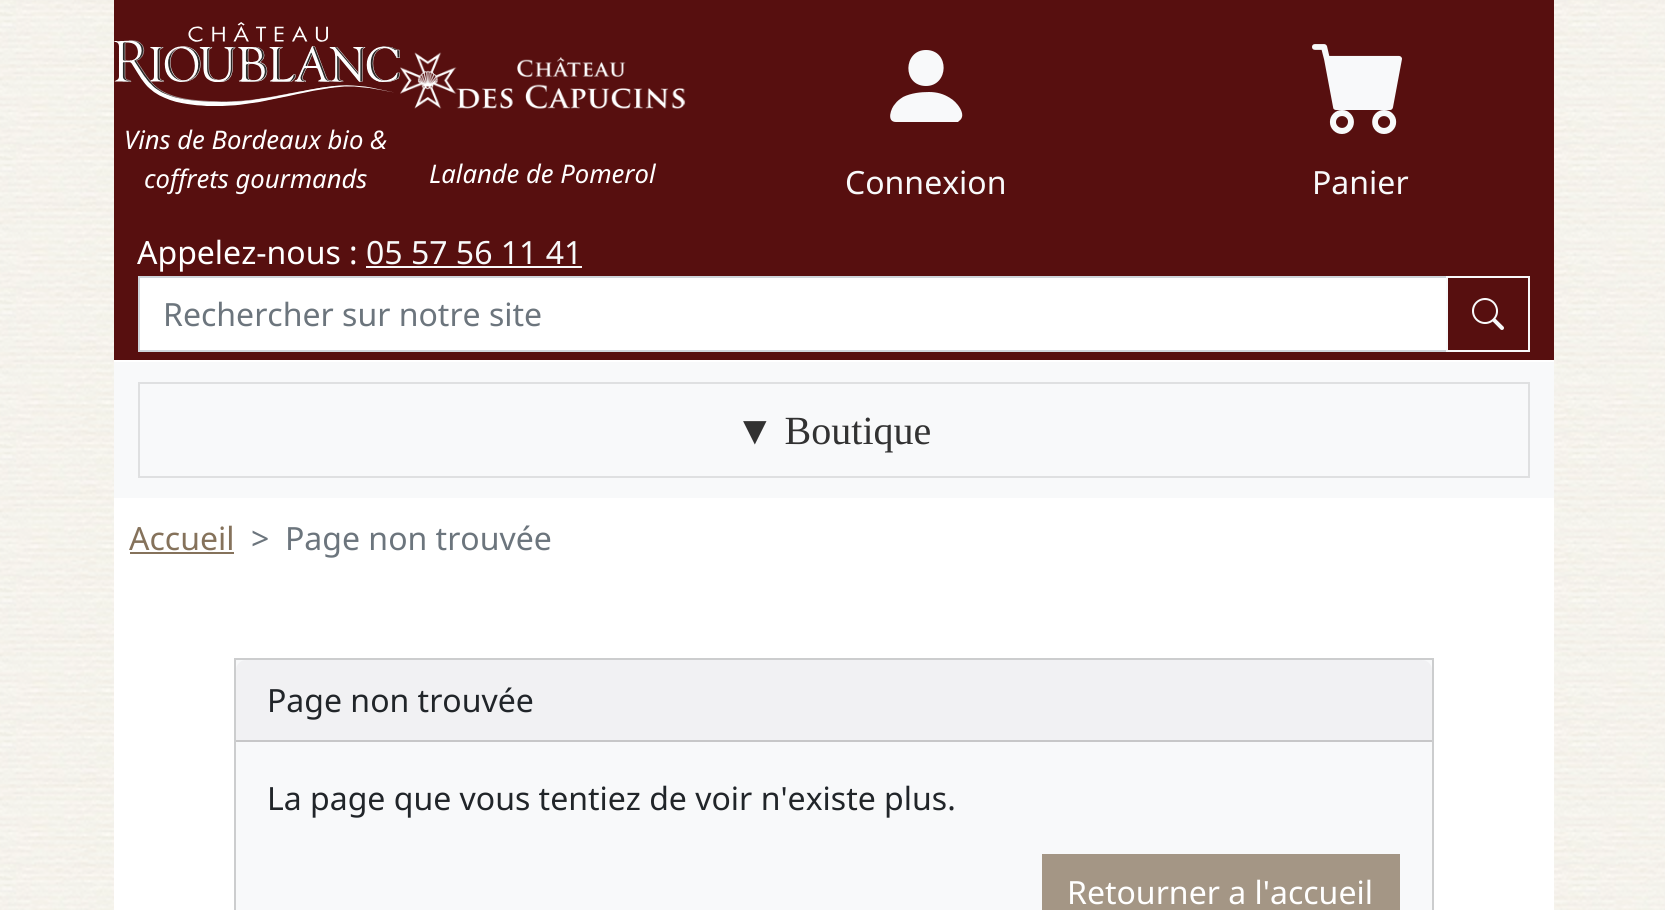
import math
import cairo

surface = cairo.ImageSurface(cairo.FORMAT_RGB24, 1665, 910)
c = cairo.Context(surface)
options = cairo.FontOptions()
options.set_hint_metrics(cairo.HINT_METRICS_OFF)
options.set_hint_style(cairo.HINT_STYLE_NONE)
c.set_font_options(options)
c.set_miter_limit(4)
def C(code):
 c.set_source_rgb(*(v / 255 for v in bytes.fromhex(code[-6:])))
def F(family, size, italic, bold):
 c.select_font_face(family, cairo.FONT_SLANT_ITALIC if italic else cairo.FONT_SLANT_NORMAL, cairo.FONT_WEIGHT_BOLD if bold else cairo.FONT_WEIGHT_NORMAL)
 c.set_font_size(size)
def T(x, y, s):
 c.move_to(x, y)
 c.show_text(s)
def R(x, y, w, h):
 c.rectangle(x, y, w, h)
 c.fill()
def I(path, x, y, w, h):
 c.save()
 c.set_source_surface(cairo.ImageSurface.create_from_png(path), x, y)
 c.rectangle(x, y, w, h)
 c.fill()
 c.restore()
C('ffffff')
c.paint()
I('1.png',0,0,1665,910)
C('ffffff')
R(114,498,1440,412)
C('570f0f')
R(114,0,1440,360)
I('2.png',114,22,286,84)
F('Noto Sans',25.6,1,0)
C('ffffff')
T(124,149,'Vins de Bordeaux bio &')
T(144,188,'coffrets gourmands')
I('3.png',400,52,286,57)
T(429,183,'Lalande de Pomerol')
C('f8f9fa')
c.new_path()
c.move_to(896,122)
c.curve_to(886,122,891,108,895,104)
c.curve_to(897,101,900,99,903,97)
c.curve_to(911,93,921,92,929,92)
c.curve_to(937,92,944,94,950,98)
c.curve_to(956,101,968,115,959,121)
c.line_to(958,122)
c.close_path()
c.move_to(926,86)
c.curve_to(949,86,950,50,926,50)
c.curve_to(903,50,902,86,926,86)
c.close_path()
c.fill()
F('Noto Sans',32,0,0)
T(845,194,'Connexion')
I('4.png',1312,44,90,90)
T(1312,194,'Panier')
C('ffffff')
T(137,264,'Appelez-nous :')
C('f8f9fa')
T(366,264,'05 57 56 11 41')
R(366,266,216,2)
C('ffffff')
c.rectangle(139,277,1308,74)
c.fill_preserve()
C('ced4da')
c.stroke()
C('6c757d')
T(163,326,'Rechercher sur notre site')
c.rectangle(1447,277,82,74)
C('f8f9fa')
c.stroke()
I('5.png',1472,298,32,32)
R(114,362,1440,136)
C('ffffff')
R(114,360,1440,2)
c.rectangle(139,383,1390,94)
C('dfe0e1')
c.stroke()
F('Liberation Serif',40,0,0)
C('323232')
T(735,444,'▼ Boutique')
F('Noto Sans',32,0,0)
C('85725b')
T(129,550,'Accueil')
R(130,552,104,2)
C('6c757d')
T(251,550,'>')
T(285,550,'Page non trouvée')
C('f8f9fa')
c.rectangle(235,659,1198,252)
c.fill_preserve()
C('cccdce')
c.stroke()
C('f1f1f3')
c.new_path()
c.move_to(246,660)
c.line_to(1422,660)
c.curve_to(1427.5,660,1432,664.5,1432,670)
c.line_to(1432,742)
c.line_to(236,742)
c.line_to(236,670)
c.curve_to(236,664.5,240.5,660,246,660)
c.close_path()
c.fill()
C('c7c7c8')
R(236,740,1196,2)
C('212529')
T(267,712,'Page non trouvée')
T(267,810,'La page que vous tentiez de voir n\'existe plus.')
C('a49685')
R(1042,854,358,56)
C('ffffff')
T(1067,904,'Retourner a l\'accueil')
surface.write_to_png('o.png')
